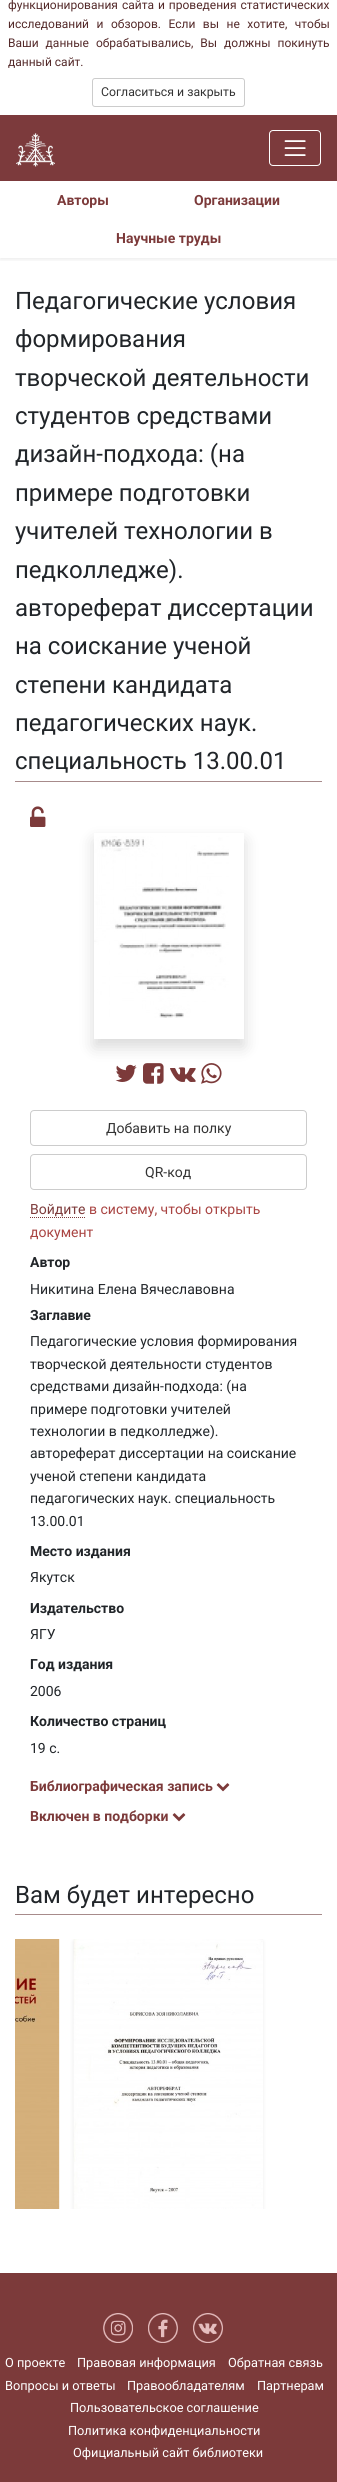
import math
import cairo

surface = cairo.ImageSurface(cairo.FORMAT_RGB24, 337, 2482)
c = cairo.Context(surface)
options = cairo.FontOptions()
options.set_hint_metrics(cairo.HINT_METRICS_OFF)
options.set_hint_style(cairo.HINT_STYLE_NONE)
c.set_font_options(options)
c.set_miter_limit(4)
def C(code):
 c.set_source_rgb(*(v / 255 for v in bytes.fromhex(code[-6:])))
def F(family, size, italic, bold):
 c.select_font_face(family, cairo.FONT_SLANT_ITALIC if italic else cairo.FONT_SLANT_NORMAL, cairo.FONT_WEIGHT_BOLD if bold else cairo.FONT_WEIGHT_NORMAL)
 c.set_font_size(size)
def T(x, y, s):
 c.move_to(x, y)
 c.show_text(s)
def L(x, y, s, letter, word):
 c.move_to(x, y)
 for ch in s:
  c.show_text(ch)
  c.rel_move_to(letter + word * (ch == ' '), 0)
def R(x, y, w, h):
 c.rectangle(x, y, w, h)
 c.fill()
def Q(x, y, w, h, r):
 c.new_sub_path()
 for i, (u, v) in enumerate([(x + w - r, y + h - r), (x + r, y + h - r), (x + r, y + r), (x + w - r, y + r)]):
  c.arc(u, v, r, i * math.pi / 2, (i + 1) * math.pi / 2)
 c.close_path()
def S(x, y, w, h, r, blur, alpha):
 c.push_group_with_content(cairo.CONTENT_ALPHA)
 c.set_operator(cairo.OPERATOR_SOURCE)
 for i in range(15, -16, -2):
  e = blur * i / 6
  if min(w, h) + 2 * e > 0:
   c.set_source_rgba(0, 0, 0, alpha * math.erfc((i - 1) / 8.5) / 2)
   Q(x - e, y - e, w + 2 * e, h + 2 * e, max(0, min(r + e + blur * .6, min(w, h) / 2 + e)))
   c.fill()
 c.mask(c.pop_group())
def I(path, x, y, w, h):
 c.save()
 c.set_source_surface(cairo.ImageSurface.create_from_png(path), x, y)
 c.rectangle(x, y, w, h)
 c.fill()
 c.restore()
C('ffffff')
c.paint()
F('Roboto',12,0,0)
C('542a2a')
L(8,9,'функционирования сайта и проведения статистических',0,1)
L(8,28,'исследований и обзоров. Если вы не хотите, чтобы',0,4.5)
L(8,47,'Ваши данные обрабатывались, Вы должны покинуть',0,4)
T(8,66,'данный сайт.')
Q(92.5,78.5,152,28,2.5)
C('cccccc')
c.set_line_width(1)
c.stroke()
F('Roboto',12.25,0,0)
C('333333')
T(101,96,'Согласиться и закрыть')
c.save()
c.rectangle(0,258,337,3)
c.clip()
C('000000')
S(0,183,337,77,0,2,.07)
c.restore()
C('7c3a3c')
R(0,115,337,66)
I('1.png',16,133,39,34)
Q(269.5,130.5,51,35,3.5)
C('ffffff')
c.stroke()
I('2.png',284,140,22,16)
F('Roboto',14,0,1)
C('7c3a3a')
T(57,205,'Авторы')
T(194,205,'Организации')
T(116,243,'Научные труды')
C('a78b8b')
R(15,781,307,1)
F('Roboto',24,0,0)
C('212529')
T(15,309,'Педагогические условия')
T(15,347,'формирования')
T(15,386,'творческой деятельности')
T(15,424,'студентов средствами')
T(15,462,'дизайн-подхода: (на')
T(15,501,'примере подготовки')
T(15,539,'учителей технологии в')
T(15,578,'педколледже).')
T(15,616,'автореферат диссертации')
T(15,654,'на соискание ученой')
T(15,693,'степени кандидата')
T(15,731,'педагогических наук.')
T(15,769,'специальность 13.00.01')
I('3.png',30,806,16,21)
c.save()
c.set_fill_rule(cairo.FILL_RULE_EVEN_ODD)
c.new_path()
c.move_to(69,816)
c.line_to(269,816)
c.line_to(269,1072)
c.line_to(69,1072)
c.close_path()
c.move_to(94,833)
c.line_to(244,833)
c.line_to(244,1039)
c.line_to(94,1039)
c.close_path()
c.clip()
C('000000')
S(94,841,150,206,0,8,.15)
c.restore()
I('4.png',94,836,135,182)
I('5.png',115,1064,22,18)
I('6.png',143,1063,21,21)
I('7.png',170,1067,26,15)
I('8.png',201,1063,21,21)
Q(30.5,1110.5,276,35,3.5)
C('cccccc')
c.stroke()
F('Roboto',14,0,0)
C('333333')
T(106,1133,'Добавить на полку')
Q(30.5,1154.5,276,35,3.5)
C('cccccc')
c.stroke()
C('333333')
T(145,1177,'QR-код')
C('7c3a3a')
T(30,1214,'Войдите')
c.new_path()
c.move_to(30,1217.5)
c.line_to(85,1217.5)
c.set_dash([1,1])
c.stroke()
C('a94442')
T(89,1214,'в систему, чтобы открыть')
T(30,1237,'документ')
F('Roboto',14,0,1)
C('212529')
T(30,1267,'Автор')
F('Roboto',14,0,0)
T(30,1294,'Никитина Елена Вячеславовна')
F('Roboto',14,0,1)
T(30,1320,'Заглавие')
F('Roboto',14,0,0)
T(30,1346,'Педагогические условия формирования')
T(30,1369,'творческой деятельности студентов')
T(30,1391,'средствами дизайн-подхода: (на')
T(30,1414,'примере подготовки учителей')
T(30,1436,'технологии в педколледже).')
T(30,1458,'автореферат диссертации на соискание')
T(30,1481,'ученой степени кандидата')
T(30,1503,'педагогических наук. специальность')
T(30,1526,'13.00.01')
F('Roboto',14,0,1)
T(30,1556,'Место издания')
F('Roboto',14,0,0)
T(30,1582,'Якутск')
F('Roboto',14,0,1)
T(30,1613,'Издательство')
F('Roboto',14,0,0)
T(30,1639,'ЯГУ')
F('Roboto',14,0,1)
T(30,1669,'Год издания')
F('Roboto',14,0,0)
T(30,1696,'2006')
F('Roboto',14,0,1)
T(30,1726,'Количество страниц')
F('Roboto',14,0,0)
T(30,1753,'19 с.')
F('Roboto',14,0,1)
C('7c3a3a')
T(30,1791,'Библиографическая запись')
I('9.png',216,1783,14,9)
T(30,1821,'Включен в подборки')
I('9.png',172,1813,14,9)
C('a78b8b')
R(15,1914,307,1)
F('Roboto',24,0,0)
C('212529')
T(15,1903,'Вам будет интересно')
I('10.png',15,1939,45,270)
c.save()
c.rectangle(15,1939,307,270)
c.clip()
C('000000')
S(73,1941,190,270,0,2,.07)
c.restore()
I('11.png',73,1939,190,270)
C('7c3a3a')
R(0,2273,337,209)
I('12.png',103,2313,30,30)
I('13.png',148,2313,30,30)
I('14.png',193,2313,30,30)
F('Roboto',12.75,0,0)
C('ffffff')
T(5,2367,'О проекте')
T(77,2367,'Правовая информация')
T(228,2367,'Обратная связь')
T(5,2390,'Вопросы и ответы')
T(127,2390,'Правообладателям')
T(257,2390,'Партнерам')
T(70,2412,'Пользовательское соглашение')
T(68,2435,'Политика конфиденциальности')
T(73,2457,'Официальный сайт библиотеки')
surface.write_to_png('o.png')
